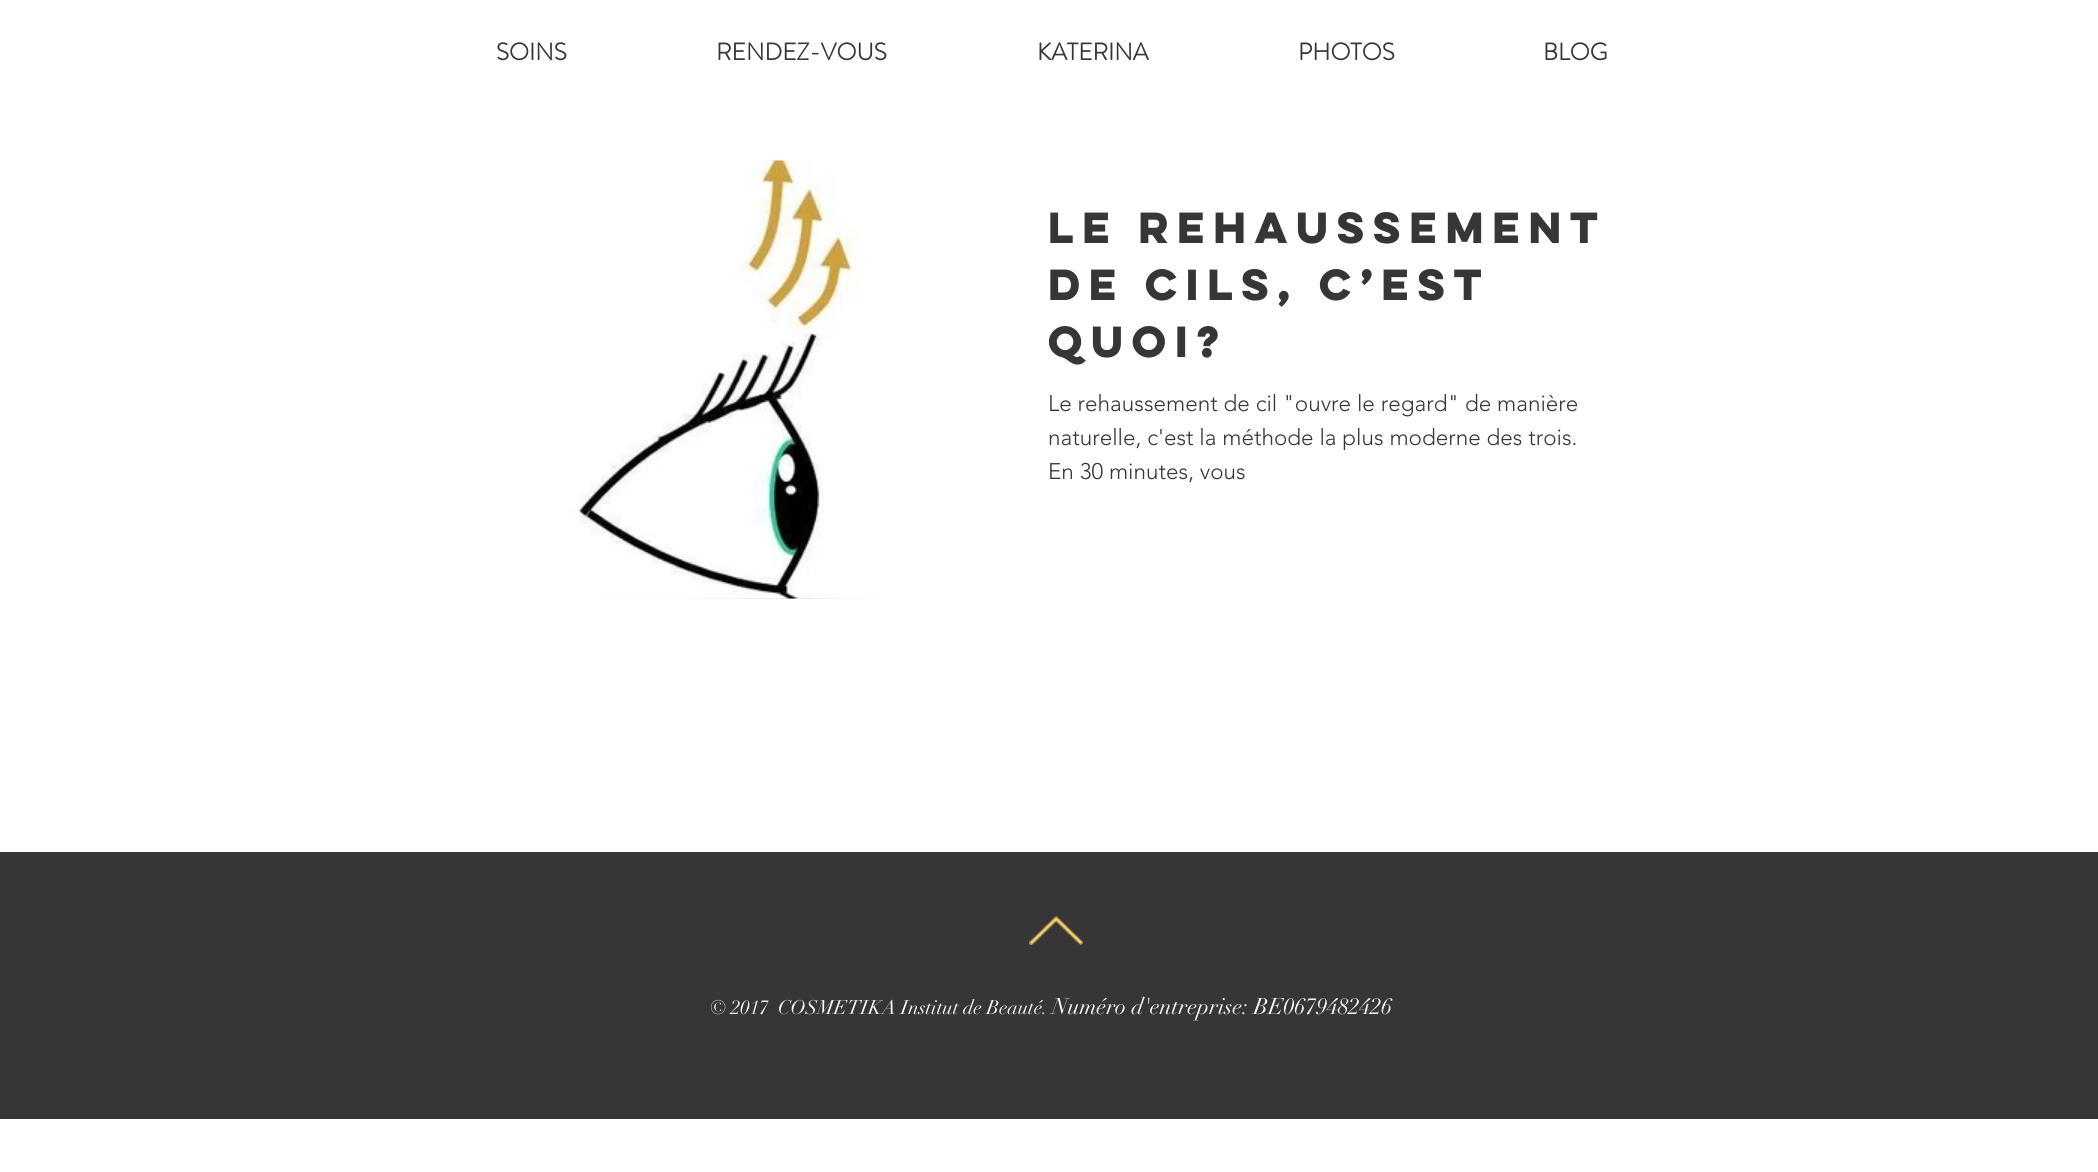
import math
import cairo

surface = cairo.ImageSurface(cairo.FORMAT_RGB24, 2098, 1172)
c = cairo.Context(surface)
options = cairo.FontOptions()
options.set_hint_metrics(cairo.HINT_METRICS_OFF)
options.set_hint_style(cairo.HINT_STYLE_NONE)
c.set_font_options(options)
c.set_miter_limit(4)
def C(code):
 c.set_source_rgb(*(v / 255 for v in bytes.fromhex(code[-6:])))
def F(family, size, italic, bold):
 c.select_font_face(family, cairo.FONT_SLANT_ITALIC if italic else cairo.FONT_SLANT_NORMAL, cairo.FONT_WEIGHT_BOLD if bold else cairo.FONT_WEIGHT_NORMAL)
 c.set_font_size(size)
def T(x, y, s):
 c.move_to(x, y)
 c.show_text(s)
def R(x, y, w, h):
 c.rectangle(x, y, w, h)
 c.fill()
def I(path, x, y, w, h):
 c.save()
 c.set_source_surface(cairo.ImageSurface.create_from_png(path), x, y)
 c.rectangle(x, y, w, h)
 c.fill()
 c.restore()
C('ffffff')
c.paint()
F('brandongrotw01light',24,0,1)
C('363636')
T(496,60,'SOINS')
T(716,60,'RENDEZ-VOUS')
T(1037,60,'KATERINA')
T(1298,60,'PHOTOS')
T(1543,60,'BLOG')
I('2.png',528,598,407,1)
I('1.png',528,160,407,439)
F('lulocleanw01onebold',39,0,1)
T(1048,243,'Le rehaussement')
T(1048,300,'de cils, c’est')
c.save()
c.rectangle(1049,198,559,171)
c.clip()
T(1048,357,'quoi?')
c.restore()
F('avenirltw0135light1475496 Light',22.5,0,0)
T(1048,411,'Le rehaussement de cil "ouvre le regard" de manière')
T(1048,445,'naturelle, c\'est la méthode la plus moderne des trois.')
T(1048,479,'En 30 minutes, vous')
R(0,852,2098,267)
I('3.png',1029,916,54,29)
F('didot',19.5,0,0)
C('ffffff')
T(710,1014,'© 2017  COSMETIKA Institut de Beauté.')
F('didot',22.5,0,0)
T(1052,1014,'Numéro d\'entreprise: BE0679482426')
surface.write_to_png('o.png')
